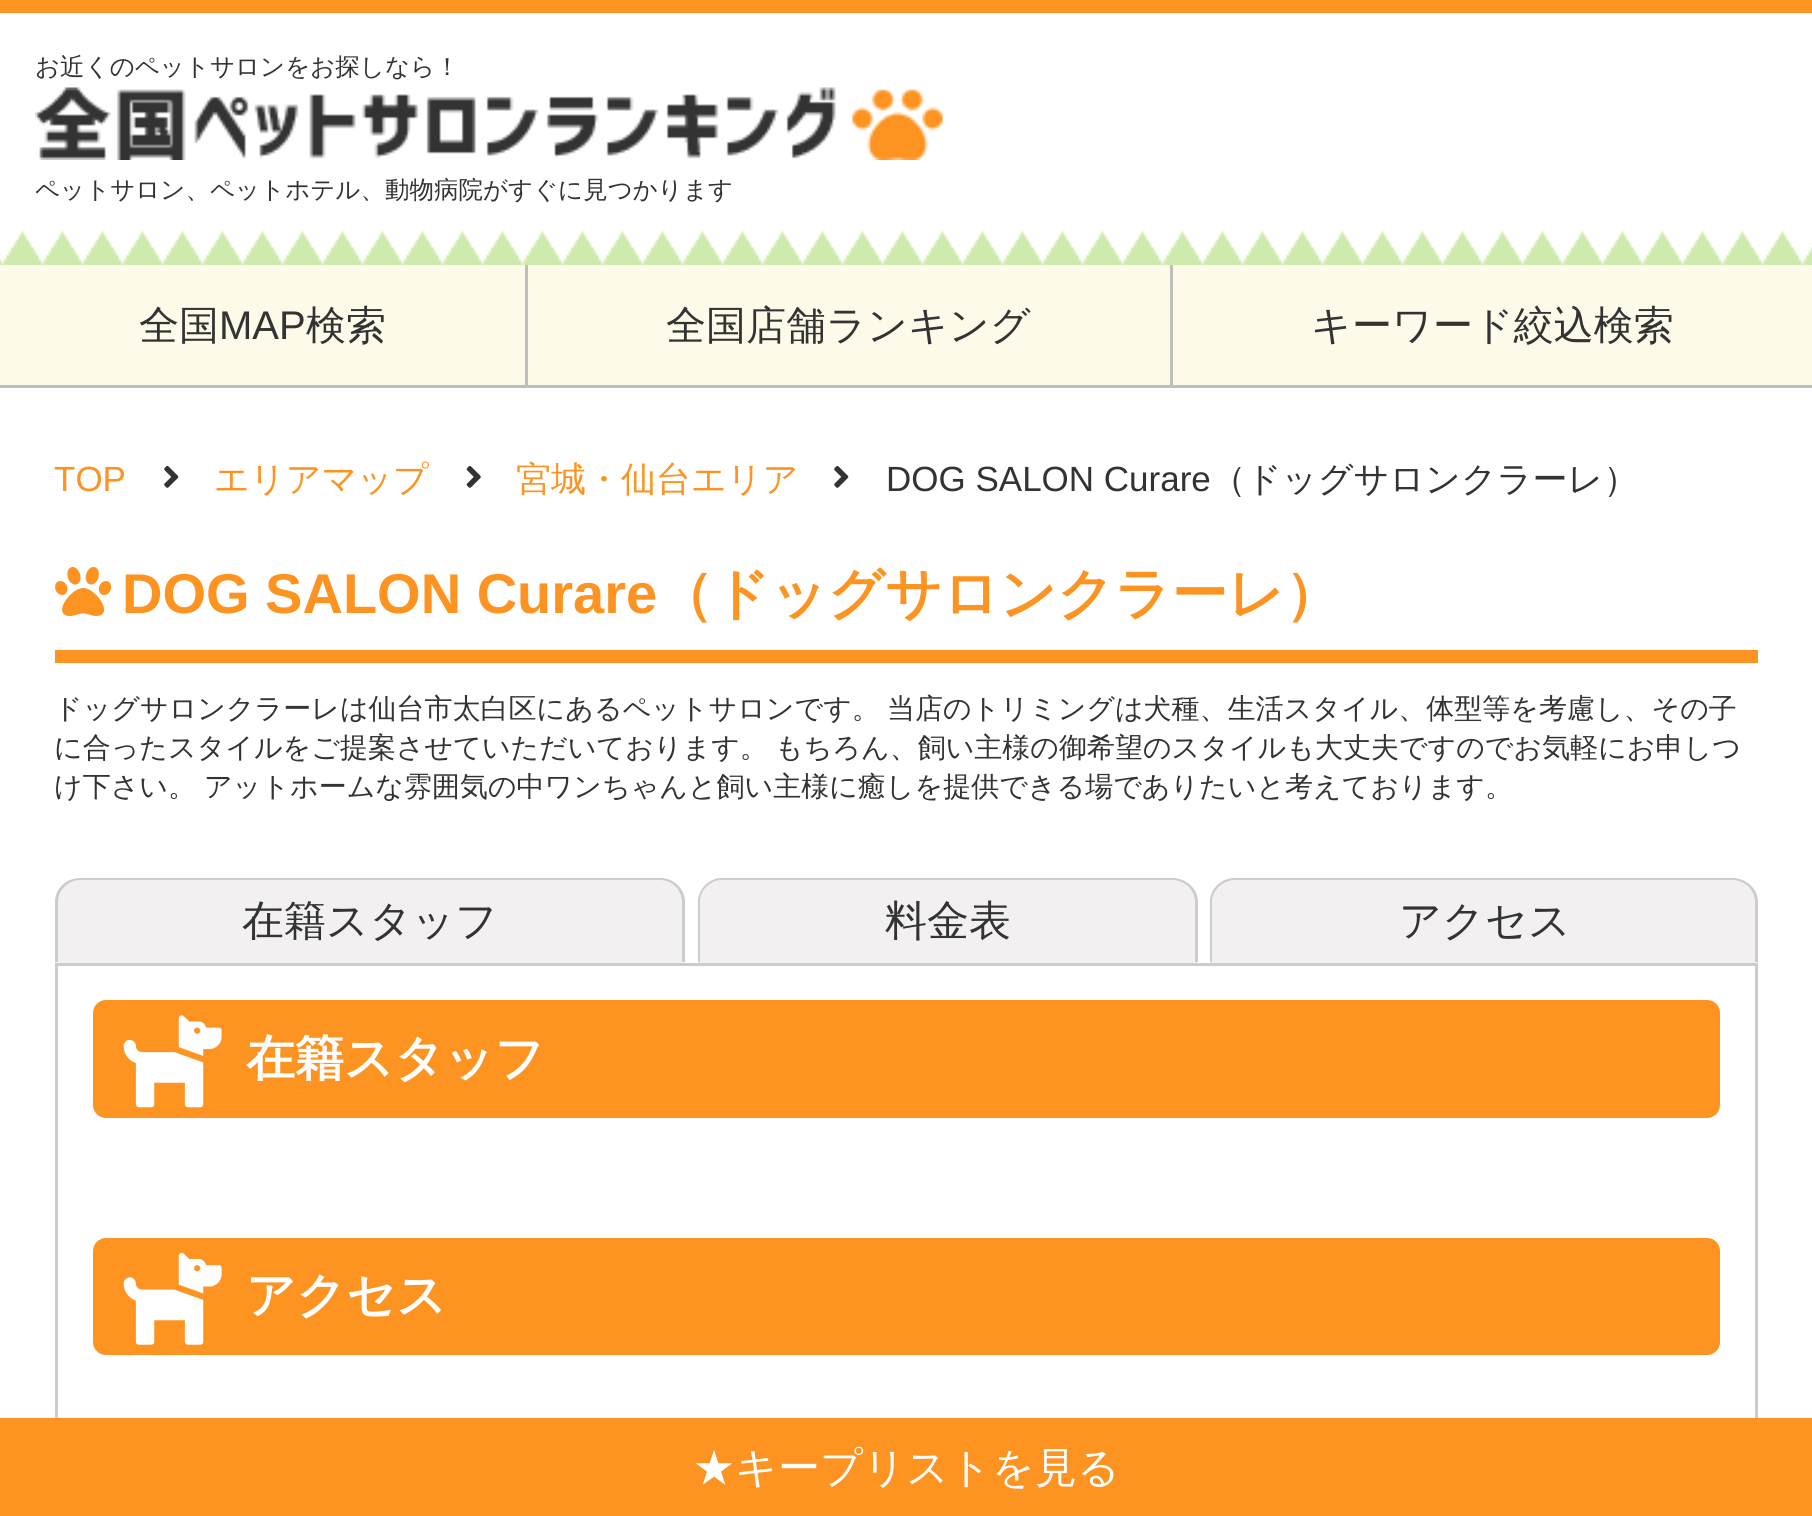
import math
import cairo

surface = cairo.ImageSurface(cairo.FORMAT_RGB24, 1812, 1516)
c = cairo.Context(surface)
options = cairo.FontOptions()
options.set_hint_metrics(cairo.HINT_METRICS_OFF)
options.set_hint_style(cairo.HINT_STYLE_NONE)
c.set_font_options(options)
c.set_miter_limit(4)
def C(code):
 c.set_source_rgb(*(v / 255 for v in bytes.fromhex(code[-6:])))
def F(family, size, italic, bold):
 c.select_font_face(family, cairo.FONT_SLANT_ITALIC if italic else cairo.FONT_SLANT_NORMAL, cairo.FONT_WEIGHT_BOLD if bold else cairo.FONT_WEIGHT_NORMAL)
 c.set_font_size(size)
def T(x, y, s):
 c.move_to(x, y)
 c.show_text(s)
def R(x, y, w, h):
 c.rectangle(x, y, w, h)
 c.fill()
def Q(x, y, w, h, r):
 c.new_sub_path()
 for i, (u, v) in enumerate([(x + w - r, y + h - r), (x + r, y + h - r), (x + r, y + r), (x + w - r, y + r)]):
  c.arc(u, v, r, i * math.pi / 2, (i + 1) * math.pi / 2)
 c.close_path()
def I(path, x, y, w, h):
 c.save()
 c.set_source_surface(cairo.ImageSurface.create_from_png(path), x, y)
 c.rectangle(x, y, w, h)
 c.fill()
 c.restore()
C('ffffff')
c.paint()
C('fd9321')
R(0,0,1812,13)
I('1.png',0,230,1812,35)
F('WenQuanYi Zen Hei Medium',24.5,0,0)
C('333333')
T(35,75,'お近くのペットサロンをお探しなら！')
I('2.png',35,87,908,73)
T(35,198,'ペットサロン、ペットホテル、動物病院がすぐに見つかります')
C('bfbfbf')
R(0,385,1812,3)
C('fdfae9')
R(0,265,525,120)
C('bfbfbf')
R(525,265,3,120)
F('WenQuanYi Zen Hei Medium',40,0,0)
C('333333')
T(139,339,'全国')
F('Liberation Sans',40,0,0)
T(219,339,'MAP')
F('WenQuanYi Zen Hei Medium',40,0,0)
T(306,339,'検索')
C('fdfae9')
R(528,265,642,120)
C('bfbfbf')
R(1170,265,3,120)
C('333333')
T(666,339,'全国店舗ランキング')
C('fdfae9')
R(1173,265,639,120)
C('333333')
T(1311,339,'キーワード絞込検索')
F('Liberation Sans',35,0,0)
C('fd9321')
T(54,491,'TOP')
I('3.png',164,466,15,22)
F('WenQuanYi Zen Hei Medium',35,0,0)
T(214,491,'エリアマップ')
I('4.png',466,466,15,22)
T(516,491,'宮城・仙台エリア')
I('3.png',834,466,15,22)
F('Liberation Sans',35,0,0)
C('333333')
T(886,491,'DOG SALON Curare')
F('WenQuanYi Zen Hei Medium',35,0,0)
T(1211,491,'（ドッグサロンクラーレ）')
C('fd9321')
R(55,650,1703,13)
I('5.png',55,567,57,49)
F('Liberation Sans',56,0,1)
T(122,613,'DOG SALON Curare')
F('WenQuanYi Zen Hei',56,0,1)
T(657,613,'（ドッグサロンクラーレ）')
F('WenQuanYi Zen Hei Medium',28,0,0)
C('333333')
T(54,718,'ドッグサロンクラーレは仙台市太白区にあるペットサロンです。')
T(887,718,'当店のトリミングは犬種、生活スタイル、体型等を考慮し、その子')
T(54,757,'に合ったスタイルをご提案させていただいております。')
T(775,757,'もちろん、飼い主様の御希望のスタイルも大丈夫ですのでお気軽にお申しつ')
T(54,796,'け下さい。')
T(204,796,'アットホームな雰囲気の中ワンちゃんと飼い主様に癒しを提供できる場でありたいと考えております。')
C('f2f0f0')
c.new_path()
c.move_to(80,878)
c.line_to(660,878)
c.curve_to(674,878,685,889,685,903)
c.line_to(685,963)
c.line_to(55,963)
c.line_to(55,903)
c.curve_to(55,889,66,878,80,878)
c.close_path()
c.fill()
C('cccccc')
c.set_fill_rule(cairo.FILL_RULE_EVEN_ODD)
c.new_path()
c.move_to(80,878)
c.line_to(660,878)
c.curve_to(674,878,685,889,685,902)
c.line_to(685,962)
c.line_to(55,962)
c.line_to(55,902)
c.curve_to(55,889,66,878,80,878)
c.close_path()
c.move_to(80,880)
c.line_to(660,880)
c.curve_to(672,880,682,890,682,902)
c.line_to(682,962)
c.line_to(58,962)
c.line_to(58,902)
c.curve_to(58,890,68,880,80,880)
c.close_path()
c.fill()
F('WenQuanYi Zen Hei Medium',42,0,0)
C('333333')
T(242,935,'在籍スタッフ')
C('f2f0f0')
c.new_path()
c.move_to(723,878)
c.line_to(1173,878)
c.curve_to(1187,878,1198,889,1198,903)
c.line_to(1198,963)
c.line_to(698,963)
c.line_to(698,903)
c.curve_to(698,889,709,878,723,878)
c.close_path()
c.fill()
C('cccccc')
c.new_path()
c.move_to(722,878)
c.line_to(1172,878)
c.curve_to(1186,878,1198,889,1198,902)
c.line_to(1198,962)
c.line_to(698,962)
c.line_to(698,902)
c.curve_to(698,889,709,878,722,878)
c.close_path()
c.move_to(722,880)
c.line_to(1172,880)
c.curve_to(1185,880,1195,890,1195,902)
c.line_to(1195,962)
c.line_to(700,962)
c.line_to(700,902)
c.curve_to(700,890,710,880,722,880)
c.close_path()
c.fill()
C('333333')
T(885,935,'料金表')
C('f2f0f0')
c.new_path()
c.move_to(1235,878)
c.line_to(1733,878)
c.curve_to(1747,878,1758,889,1758,903)
c.line_to(1758,963)
c.line_to(1210,963)
c.line_to(1210,903)
c.curve_to(1210,889,1221,878,1235,878)
c.close_path()
c.fill()
C('cccccc')
c.new_path()
c.move_to(1235,878)
c.line_to(1732,878)
c.curve_to(1746,878,1758,889,1758,902)
c.line_to(1758,962)
c.line_to(1210,962)
c.line_to(1210,902)
c.curve_to(1210,889,1221,878,1235,878)
c.close_path()
c.move_to(1235,880)
c.line_to(1732,880)
c.curve_to(1745,880,1755,890,1755,902)
c.line_to(1755,962)
c.line_to(1212,962)
c.line_to(1212,902)
c.curve_to(1212,890,1223,880,1235,880)
c.close_path()
c.fill()
C('333333')
T(1399,935,'アクセス')
c.rectangle(56.5,964.5,1700,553)
C('cccccc')
c.set_line_width(3)
c.stroke()
C('fd9321')
Q(93,1000,1627,118,13)
c.fill()
I('6.png',123,1015,99,93)
F('WenQuanYi Zen Hei',49,0,1)
C('ffffff')
T(246,1075,'在籍スタッフ')
C('fd9321')
Q(93,1238,1627,117,13)
c.fill()
I('7.png',123,1252,99,93)
C('ffffff')
T(246,1312,'アクセス')
C('fd9321')
R(0,1418,1812,98)
F('WenQuanYi Zen Hei Medium',42,0,0)
C('ffffff')
T(693,1482,'★キープリストを見る')
surface.write_to_png('o.png')
